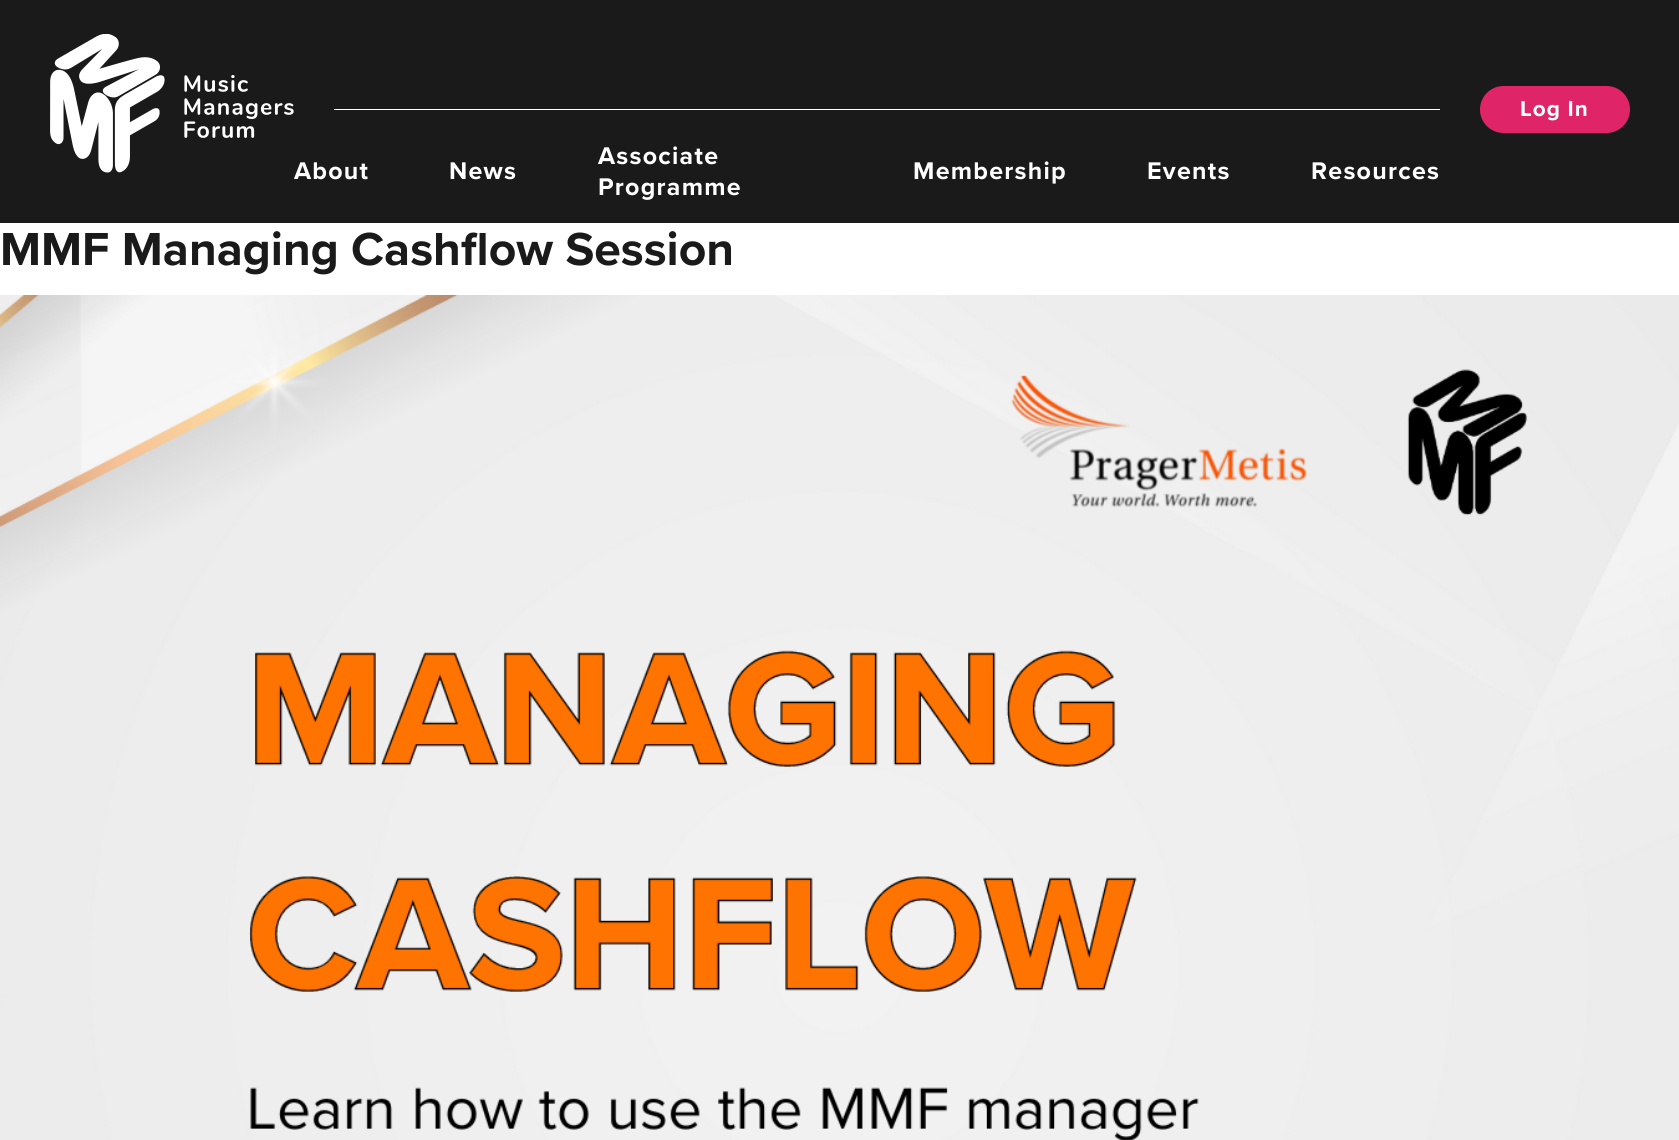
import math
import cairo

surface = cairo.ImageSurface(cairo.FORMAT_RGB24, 1679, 1140)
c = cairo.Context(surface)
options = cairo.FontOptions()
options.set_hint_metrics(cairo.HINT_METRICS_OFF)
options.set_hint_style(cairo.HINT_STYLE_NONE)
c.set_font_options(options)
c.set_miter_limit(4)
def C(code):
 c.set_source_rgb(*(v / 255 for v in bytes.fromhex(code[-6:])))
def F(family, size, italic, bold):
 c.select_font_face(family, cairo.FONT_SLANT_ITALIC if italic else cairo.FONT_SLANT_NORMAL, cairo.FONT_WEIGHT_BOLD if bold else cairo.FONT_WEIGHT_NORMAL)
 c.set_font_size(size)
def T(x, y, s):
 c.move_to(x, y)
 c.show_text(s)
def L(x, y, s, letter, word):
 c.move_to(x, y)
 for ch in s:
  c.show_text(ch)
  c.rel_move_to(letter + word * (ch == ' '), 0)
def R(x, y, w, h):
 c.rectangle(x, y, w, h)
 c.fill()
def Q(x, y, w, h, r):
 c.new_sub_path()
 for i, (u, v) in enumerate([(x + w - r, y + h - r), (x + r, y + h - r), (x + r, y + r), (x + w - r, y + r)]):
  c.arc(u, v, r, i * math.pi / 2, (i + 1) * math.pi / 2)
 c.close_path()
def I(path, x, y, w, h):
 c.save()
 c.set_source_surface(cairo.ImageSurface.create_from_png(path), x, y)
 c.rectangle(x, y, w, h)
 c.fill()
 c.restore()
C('ffffff')
c.paint()
C('1a1a1a')
R(0,0,1679,223)
I('1.png',50,34,244,139)
C('ffffff')
R(334,109,1106,1)
C('df2567')
Q(1480,86,150,47,23.5)
c.fill()
F('Proxima Nova',22.5,0,1)
C('ffffff')
L(1520,116,'Log In',1,0)
F('Proxima Nova',25,0,1)
L(294,179,'About',1.25,0)
L(449,179,'News',1.25,0)
L(598,164,'Associate',1.25,0)
L(598,195,'Programme',1.25,0)
L(913,179,'Membership',1.25,0)
L(1147,179,'Events',1.25,0)
L(1311,179,'Resources',1.25,0)
F('Proxima Nova',48,0,1)
C('1a1a1a')
T(0,265,'MMF Managing Cashflow Session')
I('2.png',0,295,1679,845)
surface.write_to_png('o.png')
